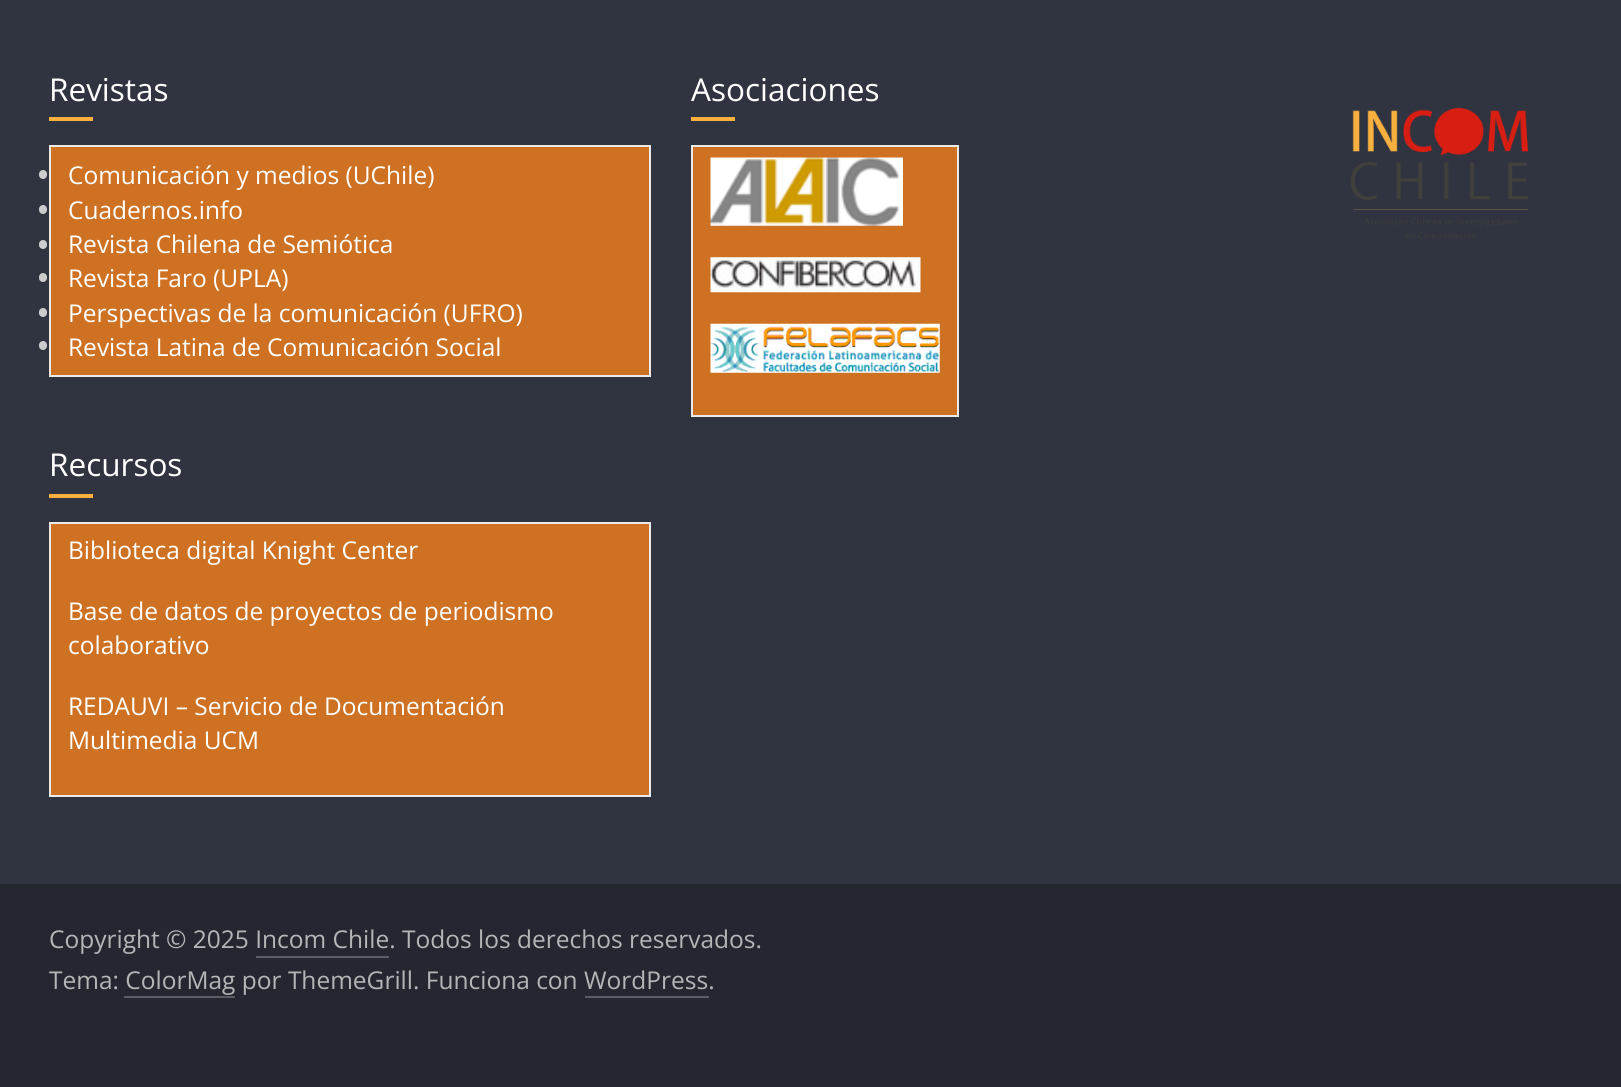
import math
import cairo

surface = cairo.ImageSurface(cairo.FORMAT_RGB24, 1621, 1087)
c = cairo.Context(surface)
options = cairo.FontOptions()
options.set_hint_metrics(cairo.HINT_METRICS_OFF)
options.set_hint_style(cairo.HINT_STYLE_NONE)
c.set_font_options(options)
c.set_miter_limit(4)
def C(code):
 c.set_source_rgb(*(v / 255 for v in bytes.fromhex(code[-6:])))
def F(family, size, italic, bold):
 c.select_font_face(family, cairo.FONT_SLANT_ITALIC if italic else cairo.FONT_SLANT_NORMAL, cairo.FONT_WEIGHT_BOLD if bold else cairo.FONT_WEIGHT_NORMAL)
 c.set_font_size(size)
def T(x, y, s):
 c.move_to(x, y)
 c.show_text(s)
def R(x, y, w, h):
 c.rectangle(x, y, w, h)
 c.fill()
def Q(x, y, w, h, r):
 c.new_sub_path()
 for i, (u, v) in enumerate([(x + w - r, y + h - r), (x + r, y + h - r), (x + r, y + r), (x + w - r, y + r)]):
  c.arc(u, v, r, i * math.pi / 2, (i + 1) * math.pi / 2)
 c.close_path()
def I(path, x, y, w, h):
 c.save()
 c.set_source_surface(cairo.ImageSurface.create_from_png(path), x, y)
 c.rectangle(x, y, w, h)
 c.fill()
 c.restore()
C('303440')
c.paint()
F('Open Sans',31.5,0,0)
C('ffffff')
T(49,101,'Revistas')
C('f9b03f')
R(49,117,44,4)
C('ce7122')
R(51,147,598,228)
C('eaeaea')
R(49,145,602,2)
R(649,145,2,231)
R(49,375,602,2)
R(49,145,2,231)
C('cccccc')
Q(39,170,8,9,4)
c.fill()
F('Open Sans',24.5,0,0)
C('ffffff')
T(68,184,'Comunicación y medios (UChile)')
C('cccccc')
Q(39,205,8,9,4)
c.fill()
C('ffffff')
T(68,219,'Cuadernos.info')
C('cccccc')
Q(39,240,8,9,4)
c.fill()
C('ffffff')
T(68,253,'Revista Chilena de Semiótica')
C('cccccc')
Q(39,273,8,9,4)
c.fill()
C('ffffff')
T(68,287,'Revista Faro (UPLA)')
C('cccccc')
Q(39,308,8,9,4)
c.fill()
C('ffffff')
T(68,322,'Perspectivas de la comunicación (UFRO)')
C('cccccc')
Q(39,341,8,9,4)
c.fill()
C('ffffff')
T(68,356,'Revista Latina de Comunicación Social')
F('Open Sans',31.5,0,0)
T(49,476,'Recursos')
C('f9b03f')
R(49,494,44,4)
C('ce7122')
R(51,524,598,271)
C('eaeaea')
R(49,522,602,2)
R(649,522,2,274)
R(49,795,602,2)
R(49,522,2,274)
F('Open Sans',24.5,0,0)
C('ffffff')
T(68,559,'Biblioteca digital Knight Center')
T(68,620,'Base de datos de proyectos de periodismo')
T(68,654,'colaborativo')
T(68,715,'REDAUVI – Servicio de Documentación')
T(68,749,'Multimedia UCM')
F('Open Sans',31.5,0,0)
T(691,101,'Asociaciones')
C('f9b03f')
R(691,117,44,4)
C('ce7122')
R(693,147,264,268)
C('eaeaea')
R(691,145,268,2)
R(957,145,2,272)
R(691,415,268,2)
R(691,145,2,272)
I('1.png',710,157,193,69)
I('2.png',710,257,211,36)
I('3.png',710,323,230,50)
I('4.png',1351,107,178,132)
C('252730')
R(0,884,1621,203)
F('Open Sans',24.5,0,0)
C('b1b6b6')
T(49,948,'Copyright © 2025 Incom Chile. Todos los derechos reservados.')
C('5a5d62')
R(256,956,133,2)
C('b1b6b6')
T(49,989,'Tema: ColorMag por ThemeGrill. Funciona con WordPress.')
C('5a5d62')
R(124,996,111,2)
R(585,996,124,2)
surface.write_to_png('o.png')
